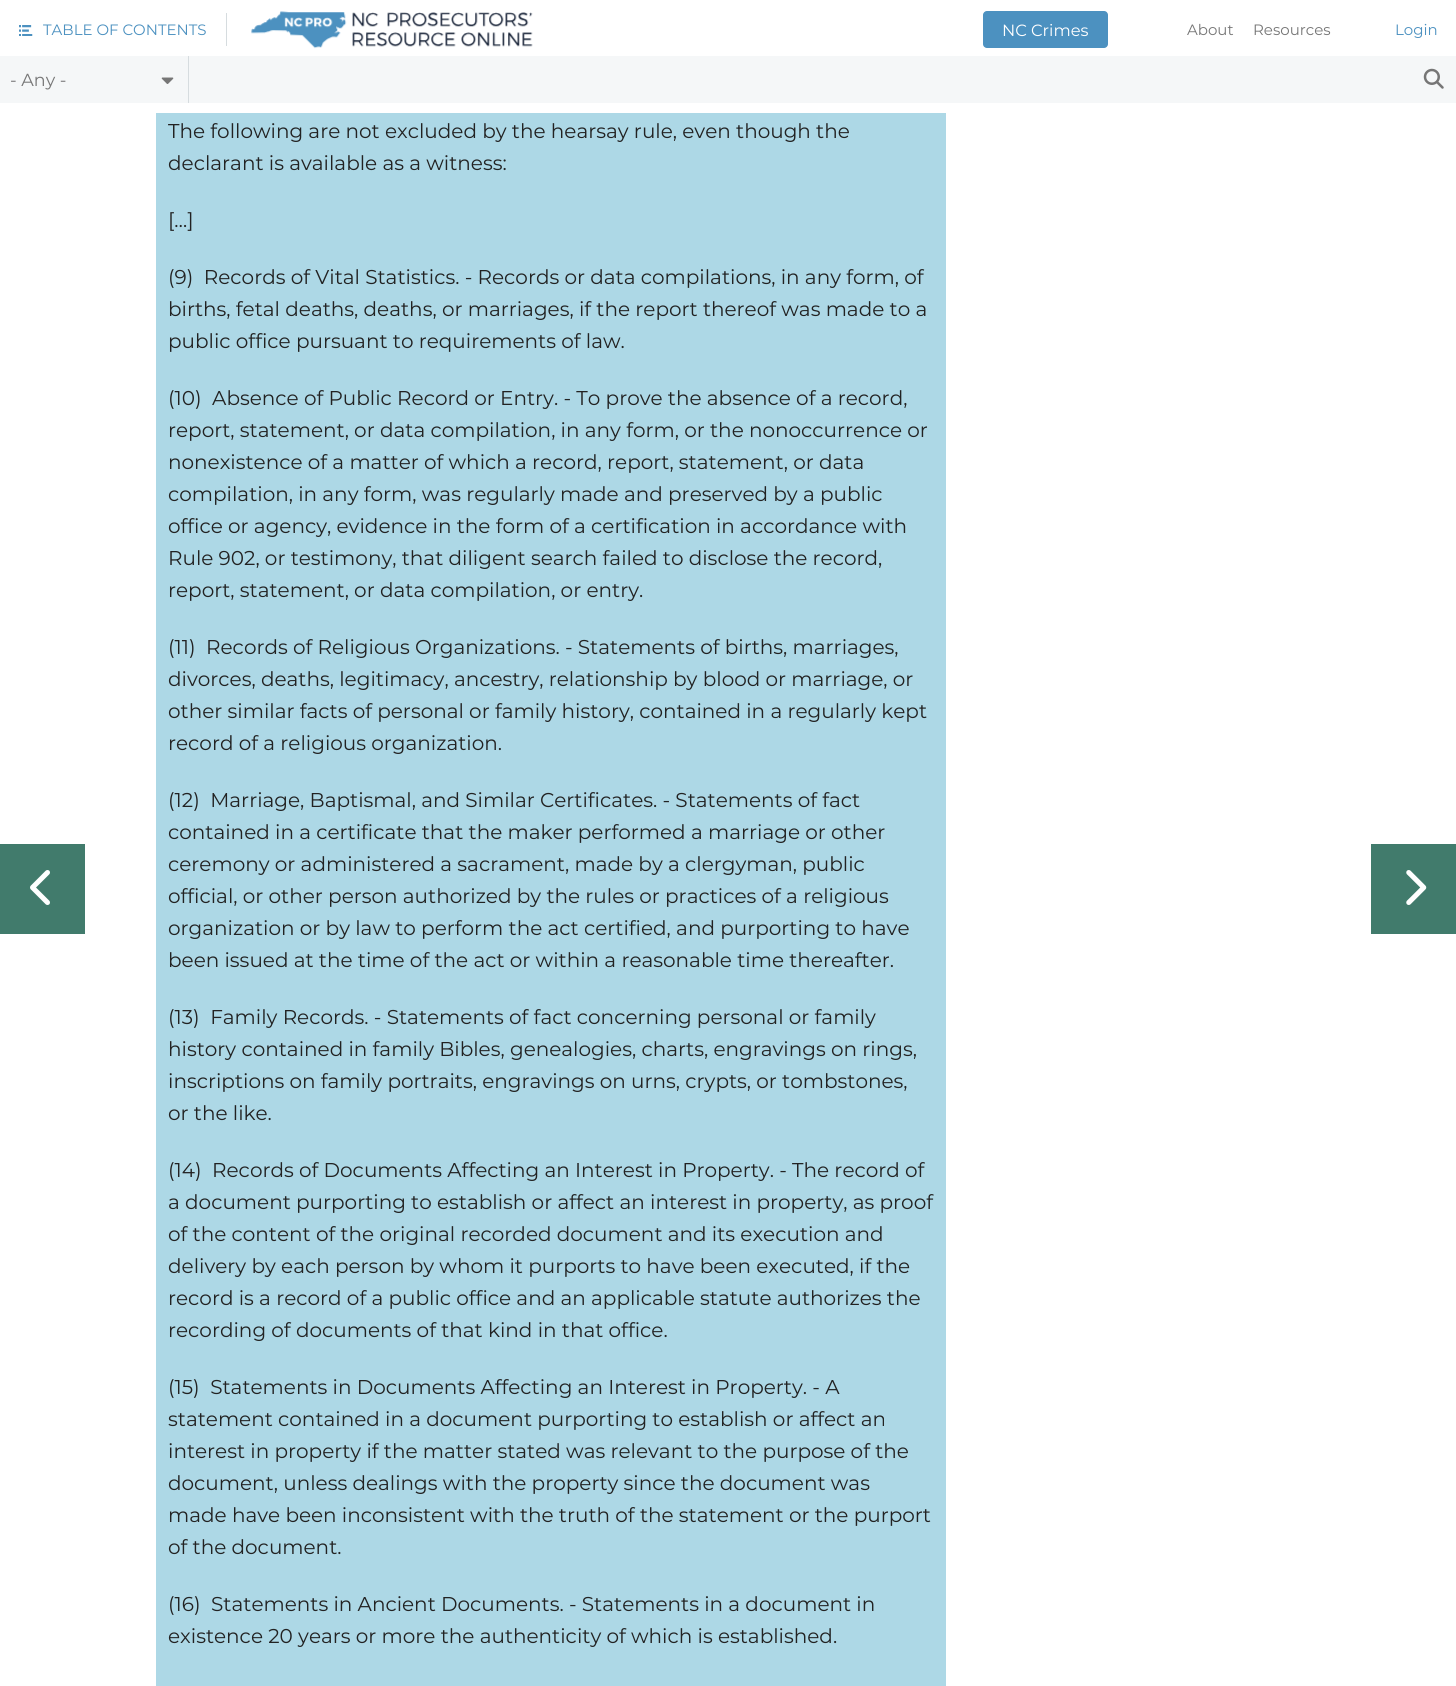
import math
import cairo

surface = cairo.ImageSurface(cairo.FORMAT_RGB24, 1456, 1686)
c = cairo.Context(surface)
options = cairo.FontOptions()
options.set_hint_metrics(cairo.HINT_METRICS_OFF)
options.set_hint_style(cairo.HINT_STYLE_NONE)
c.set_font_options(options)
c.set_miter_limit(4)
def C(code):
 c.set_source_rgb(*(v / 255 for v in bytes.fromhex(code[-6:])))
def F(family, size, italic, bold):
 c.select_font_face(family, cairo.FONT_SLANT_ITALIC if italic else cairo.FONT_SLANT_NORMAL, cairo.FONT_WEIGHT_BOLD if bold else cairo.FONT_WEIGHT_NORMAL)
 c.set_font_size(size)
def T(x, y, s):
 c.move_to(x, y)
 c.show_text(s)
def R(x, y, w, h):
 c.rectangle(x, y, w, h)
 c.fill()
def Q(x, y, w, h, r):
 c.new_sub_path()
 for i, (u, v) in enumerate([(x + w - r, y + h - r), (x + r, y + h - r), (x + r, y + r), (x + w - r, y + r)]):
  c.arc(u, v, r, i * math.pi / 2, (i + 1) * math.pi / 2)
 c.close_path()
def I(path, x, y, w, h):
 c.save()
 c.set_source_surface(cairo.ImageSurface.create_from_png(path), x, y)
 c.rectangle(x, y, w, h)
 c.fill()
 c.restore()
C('ffffff')
c.paint()
C('d6dcdf')
R(226,13,1,33)
I('1.png',19,25,14,11)
F('Montserrat Thin',15,0,0)
C('4c91c0')
T(43,35,'TABLE OF CONTENTS')
I('2.png',251,11,282,38)
Q(983,11,125,37,4)
c.fill()
F('Montserrat Thin',16.25,0,0)
C('ffffff')
T(1002,36,'NC Crimes')
F('Montserrat Thin',15,0,0)
C('767676')
T(1187,35,'About')
T(1253,35,'Resources')
C('4c91c0')
T(1395,35,'Login')
C('f5f7f8')
R(189,56,1267,47)
C('d6dcdf')
R(188,56,1,47)
C('f5f7f8')
R(0,56,188,47)
F('Montserrat Thin',17.5,0,0)
C('767676')
T(10,86,'- Any -')
I('3.png',161,77,13,7)
I('4.png',1423,68,21,21)
C('add8e6')
R(156,113,790,1573)
F('Montserrat Thin',20,0,0)
C('222222')
T(168,138,'The following are not excluded by the hearsay rule, even though the')
T(168,170,'declarant is available as a witness:')
T(168,227,'[…]')
T(168,284,'(9)  Records of Vital Statistics. - Records or data compilations, in any form, of')
T(168,316,'births, fetal deaths, deaths, or marriages, if the report thereof was made to a')
T(168,348,'public office pursuant to requirements of law.')
T(168,405,'(10)  Absence of Public Record or Entry. - To prove the absence of a record,')
T(168,437,'report, statement, or data compilation, in any form, or the nonoccurrence or')
T(168,469,'nonexistence of a matter of which a record, report, statement, or data')
T(168,501,'compilation, in any form, was regularly made and preserved by a public')
T(168,533,'office or agency, evidence in the form of a certification in accordance with')
T(168,565,'Rule 902, or testimony, that diligent search failed to disclose the record,')
T(168,597,'report, statement, or data compilation, or entry.')
T(168,654,'(11)  Records of Religious Organizations. - Statements of births, marriages,')
T(168,686,'divorces, deaths, legitimacy, ancestry, relationship by blood or marriage, or')
T(168,718,'other similar facts of personal or family history, contained in a regularly kept')
T(168,750,'record of a religious organization.')
T(168,807,'(12)  Marriage, Baptismal, and Similar Certificates. - Statements of fact')
T(168,839,'contained in a certificate that the maker performed a marriage or other')
T(168,871,'ceremony or administered a sacrament, made by a clergyman, public')
T(168,903,'official, or other person authorized by the rules or practices of a religious')
T(168,935,'organization or by law to perform the act certified, and purporting to have')
T(168,967,'been issued at the time of the act or within a reasonable time thereafter.')
T(168,1024,'(13)  Family Records. - Statements of fact concerning personal or family')
T(168,1056,'history contained in family Bibles, genealogies, charts, engravings on rings,')
T(168,1088,'inscriptions on family portraits, engravings on urns, crypts, or tombstones,')
T(168,1120,'or the like.')
T(168,1177,'(14)  Records of Documents Affecting an Interest in Property. - The record of')
T(168,1209,'a document purporting to establish or affect an interest in property, as proof')
T(168,1241,'of the content of the original recorded document and its execution and')
T(168,1273,'delivery by each person by whom it purports to have been executed, if the')
T(168,1305,'record is a record of a public office and an applicable statute authorizes the')
T(168,1337,'recording of documents of that kind in that office.')
T(168,1394,'(15)  Statements in Documents Affecting an Interest in Property. - A')
T(168,1426,'statement contained in a document purporting to establish or affect an')
T(168,1458,'interest in property if the matter stated was relevant to the purpose of the')
T(168,1490,'document, unless dealings with the property since the document was')
T(168,1522,'made have been inconsistent with the truth of the statement or the purport')
T(168,1554,'of the document.')
T(168,1611,'(16)  Statements in Ancient Documents. - Statements in a document in')
T(168,1643,'existence 20 years or more the authenticity of which is established.')
C('417b6c')
R(0,844,85,90)
I('5.png',30,870,20,35)
R(1371,844,85,90)
I('6.png',1406,870,21,35)
surface.write_to_png('o.png')
